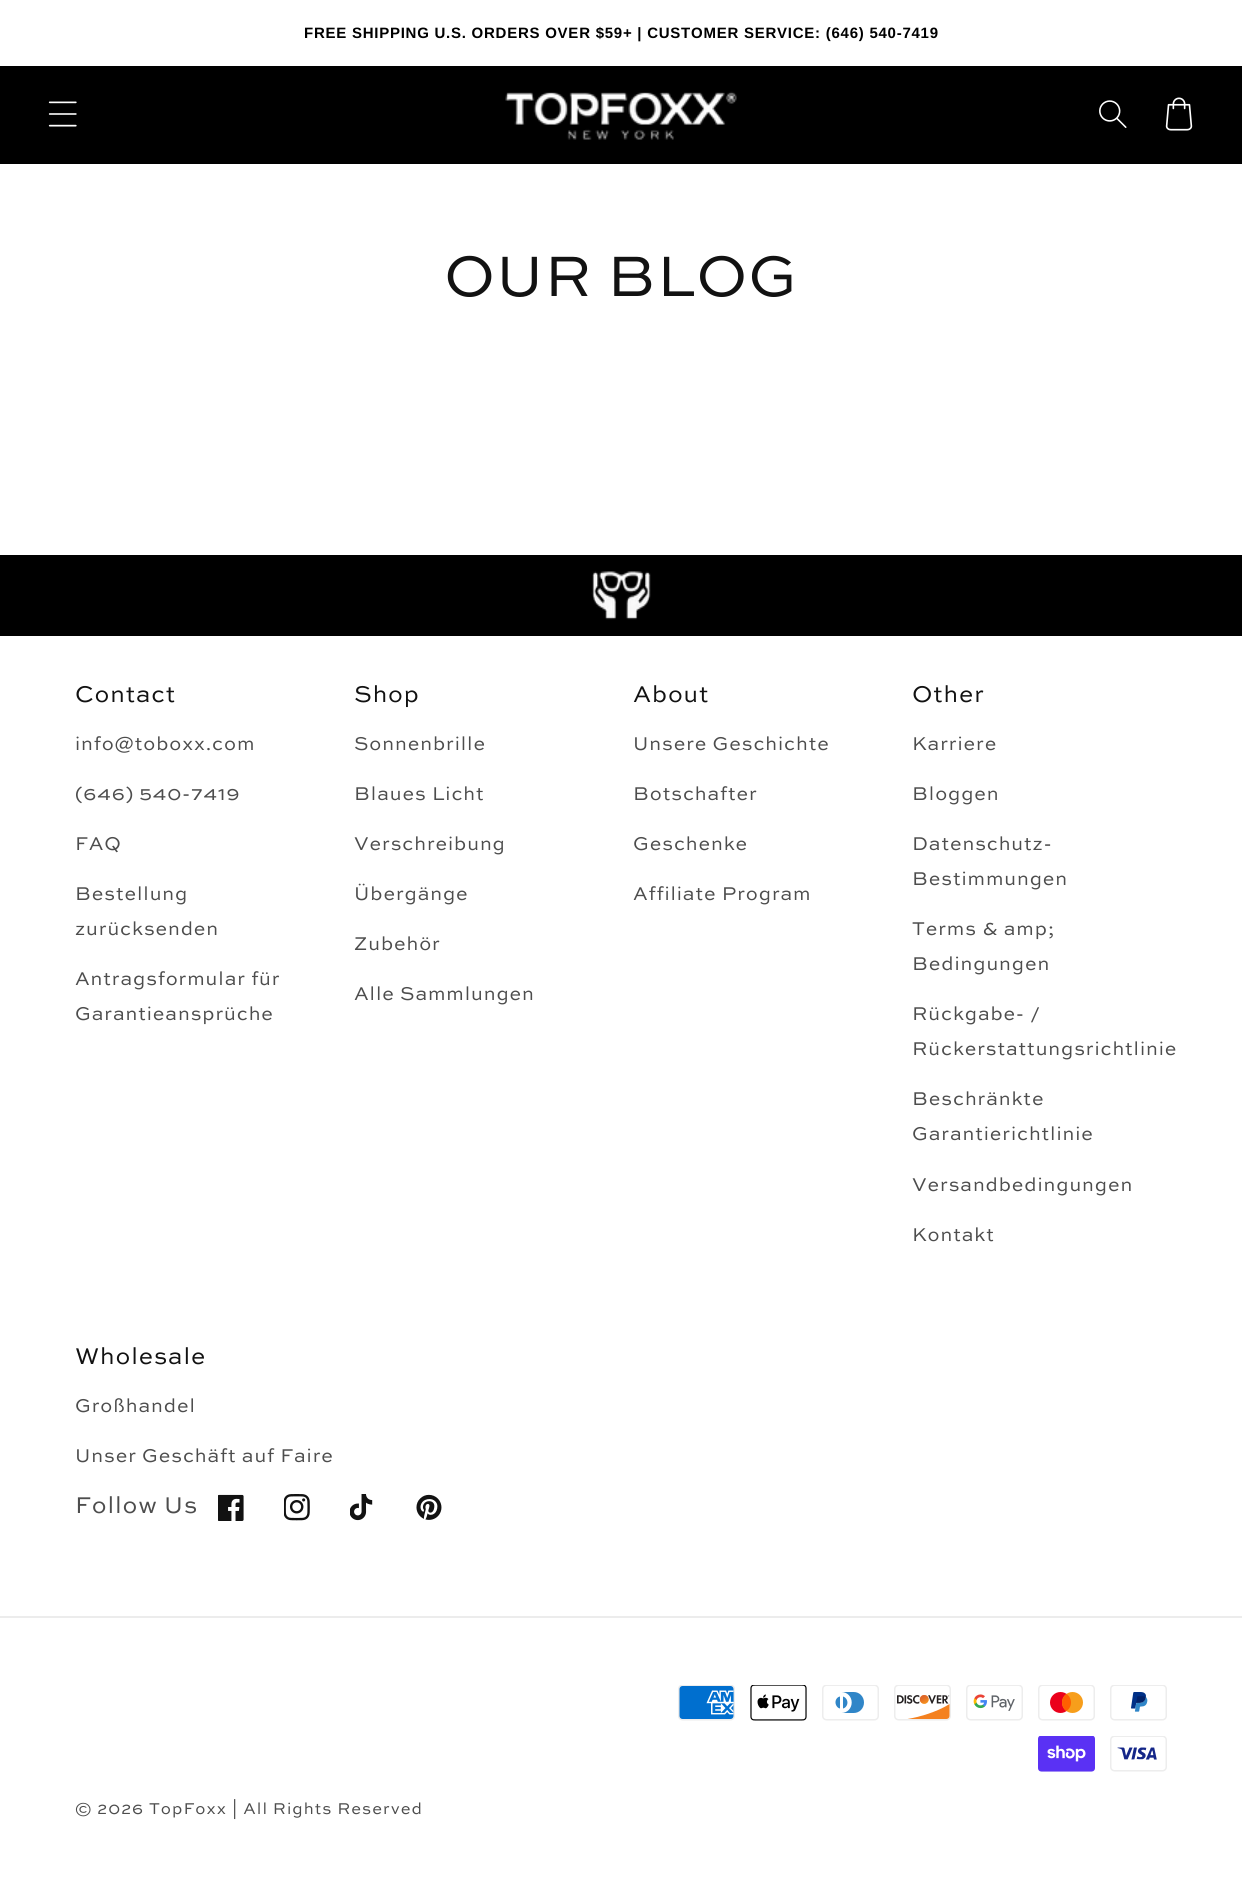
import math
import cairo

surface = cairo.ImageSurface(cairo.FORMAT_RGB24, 1242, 1879)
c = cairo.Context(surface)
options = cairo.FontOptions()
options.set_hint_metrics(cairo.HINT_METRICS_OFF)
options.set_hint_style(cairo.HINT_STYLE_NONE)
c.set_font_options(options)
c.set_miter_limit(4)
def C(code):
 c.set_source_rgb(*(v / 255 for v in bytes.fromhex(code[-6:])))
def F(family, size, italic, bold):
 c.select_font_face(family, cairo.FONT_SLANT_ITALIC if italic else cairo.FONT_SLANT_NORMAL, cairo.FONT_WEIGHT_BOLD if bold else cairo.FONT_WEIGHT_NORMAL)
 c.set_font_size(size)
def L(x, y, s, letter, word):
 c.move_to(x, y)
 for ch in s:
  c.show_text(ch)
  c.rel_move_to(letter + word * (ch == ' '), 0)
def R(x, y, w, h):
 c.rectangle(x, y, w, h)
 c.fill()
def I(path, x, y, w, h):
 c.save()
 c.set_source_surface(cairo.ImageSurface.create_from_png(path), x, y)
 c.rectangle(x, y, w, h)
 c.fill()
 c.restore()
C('ffffff')
c.paint()
F('Liberation Sans',15,0,1)
C('000000')
L(304,38,'FREE SHIPPING U.S. ORDERS OVER $59+ | CUSTOMER SERVICE: (646) 540-7419',.75,0)
R(0,66,1242,98)
I('1.png',48,101,29,26)
I('2.png',505,91,232,49)
I('3.png',1099,100,28,28)
I('4.png',1165,97,28,34)
F('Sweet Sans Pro',60,0,0)
C('121212')
L(444,296,'OUR BLOG',.9,0)
C('000000')
R(0,555,1242,81)
I('5.png',591,571,60,49)
F('Sweet Sans Pro',24,0,0)
C('121212')
L(75,702,'Contact',.9,0)
F('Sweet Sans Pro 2',19.5,0,0)
C('4d4d4d')
L(75,750,'info@toboxx.com',.9,0)
L(75,800,'(646) 540-7419',.9,0)
L(75,850,'FAQ',.9,0)
L(75,900,'Bestellung',.9,0)
L(75,935,'zurücksenden',.9,0)
L(75,985,'Antragsformular für',.9,0)
L(75,1020,'Garantieansprüche',.9,0)
F('Sweet Sans Pro',24,0,0)
C('121212')
L(354,702,'Shop',.9,0)
F('Sweet Sans Pro 2',19.5,0,0)
C('4d4d4d')
L(354,750,'Sonnenbrille',.9,0)
L(354,800,'Blaues Licht',.9,0)
L(354,850,'Verschreibung',.9,0)
L(354,900,'Übergänge',.9,0)
L(354,950,'Zubehör',.9,0)
L(354,1000,'Alle Sammlungen',.9,0)
F('Sweet Sans Pro',24,0,0)
C('121212')
L(633,702,'About',.9,0)
F('Sweet Sans Pro 2',19.5,0,0)
C('4d4d4d')
L(633,750,'Unsere Geschichte',.9,0)
L(633,800,'Botschafter',.9,0)
L(633,850,'Geschenke',.9,0)
L(633,900,'Affiliate Program',.9,0)
F('Sweet Sans Pro',24,0,0)
C('121212')
L(912,702,'Other',.9,0)
F('Sweet Sans Pro 2',19.5,0,0)
C('4d4d4d')
L(912,750,'Karriere',.9,0)
L(912,800,'Bloggen',.9,0)
L(912,850,'Datenschutz-',.9,0)
L(912,885,'Bestimmungen',.9,0)
L(912,935,'Terms & amp;',.9,0)
L(912,970,'Bedingungen',.9,0)
L(912,1020,'Rückgabe- /',.9,0)
L(912,1055,'Rückerstattungsrichtlinie',.9,0)
L(912,1105,'Beschränkte',.9,0)
L(912,1140,'Garantierichtlinie',.9,0)
L(912,1191,'Versandbedingungen',.9,0)
L(912,1241,'Kontakt',.9,0)
F('Sweet Sans Pro',24,0,0)
C('121212')
L(75,1364,'Wholesale',.9,0)
F('Sweet Sans Pro 2',19.5,0,0)
C('4d4d4d')
L(75,1412,'Großhandel',.9,0)
L(75,1462,'Unser Geschäft auf Faire',.9,0)
F('Sweet Sans Pro 2',24,0,0)
L(75,1513,'Follow Us',.9,0)
I('6.png',218,1494,26,27)
I('7.png',284,1494,26,27)
I('8.png',350,1494,23,27)
I('9.png',416,1494,26,26)
C('ececec')
R(0,1616,1242,2)
I('10.png',678,1685,57,36)
I('11.png',750,1685,57,36)
I('12.png',822,1685,57,36)
I('13.png',894,1685,57,36)
I('14.png',966,1685,57,36)
I('15.png',1038,1685,57,36)
I('16.png',1110,1685,57,36)
I('17.png',1038,1736,57,36)
I('18.png',1110,1736,57,36)
F('Sweet Sans Pro 2',16.5,0,0)
C('4d4d4d')
L(75,1814,'© 2026 TopFoxx | All Rights Reserved',1.05,0)
surface.write_to_png('o.png')
